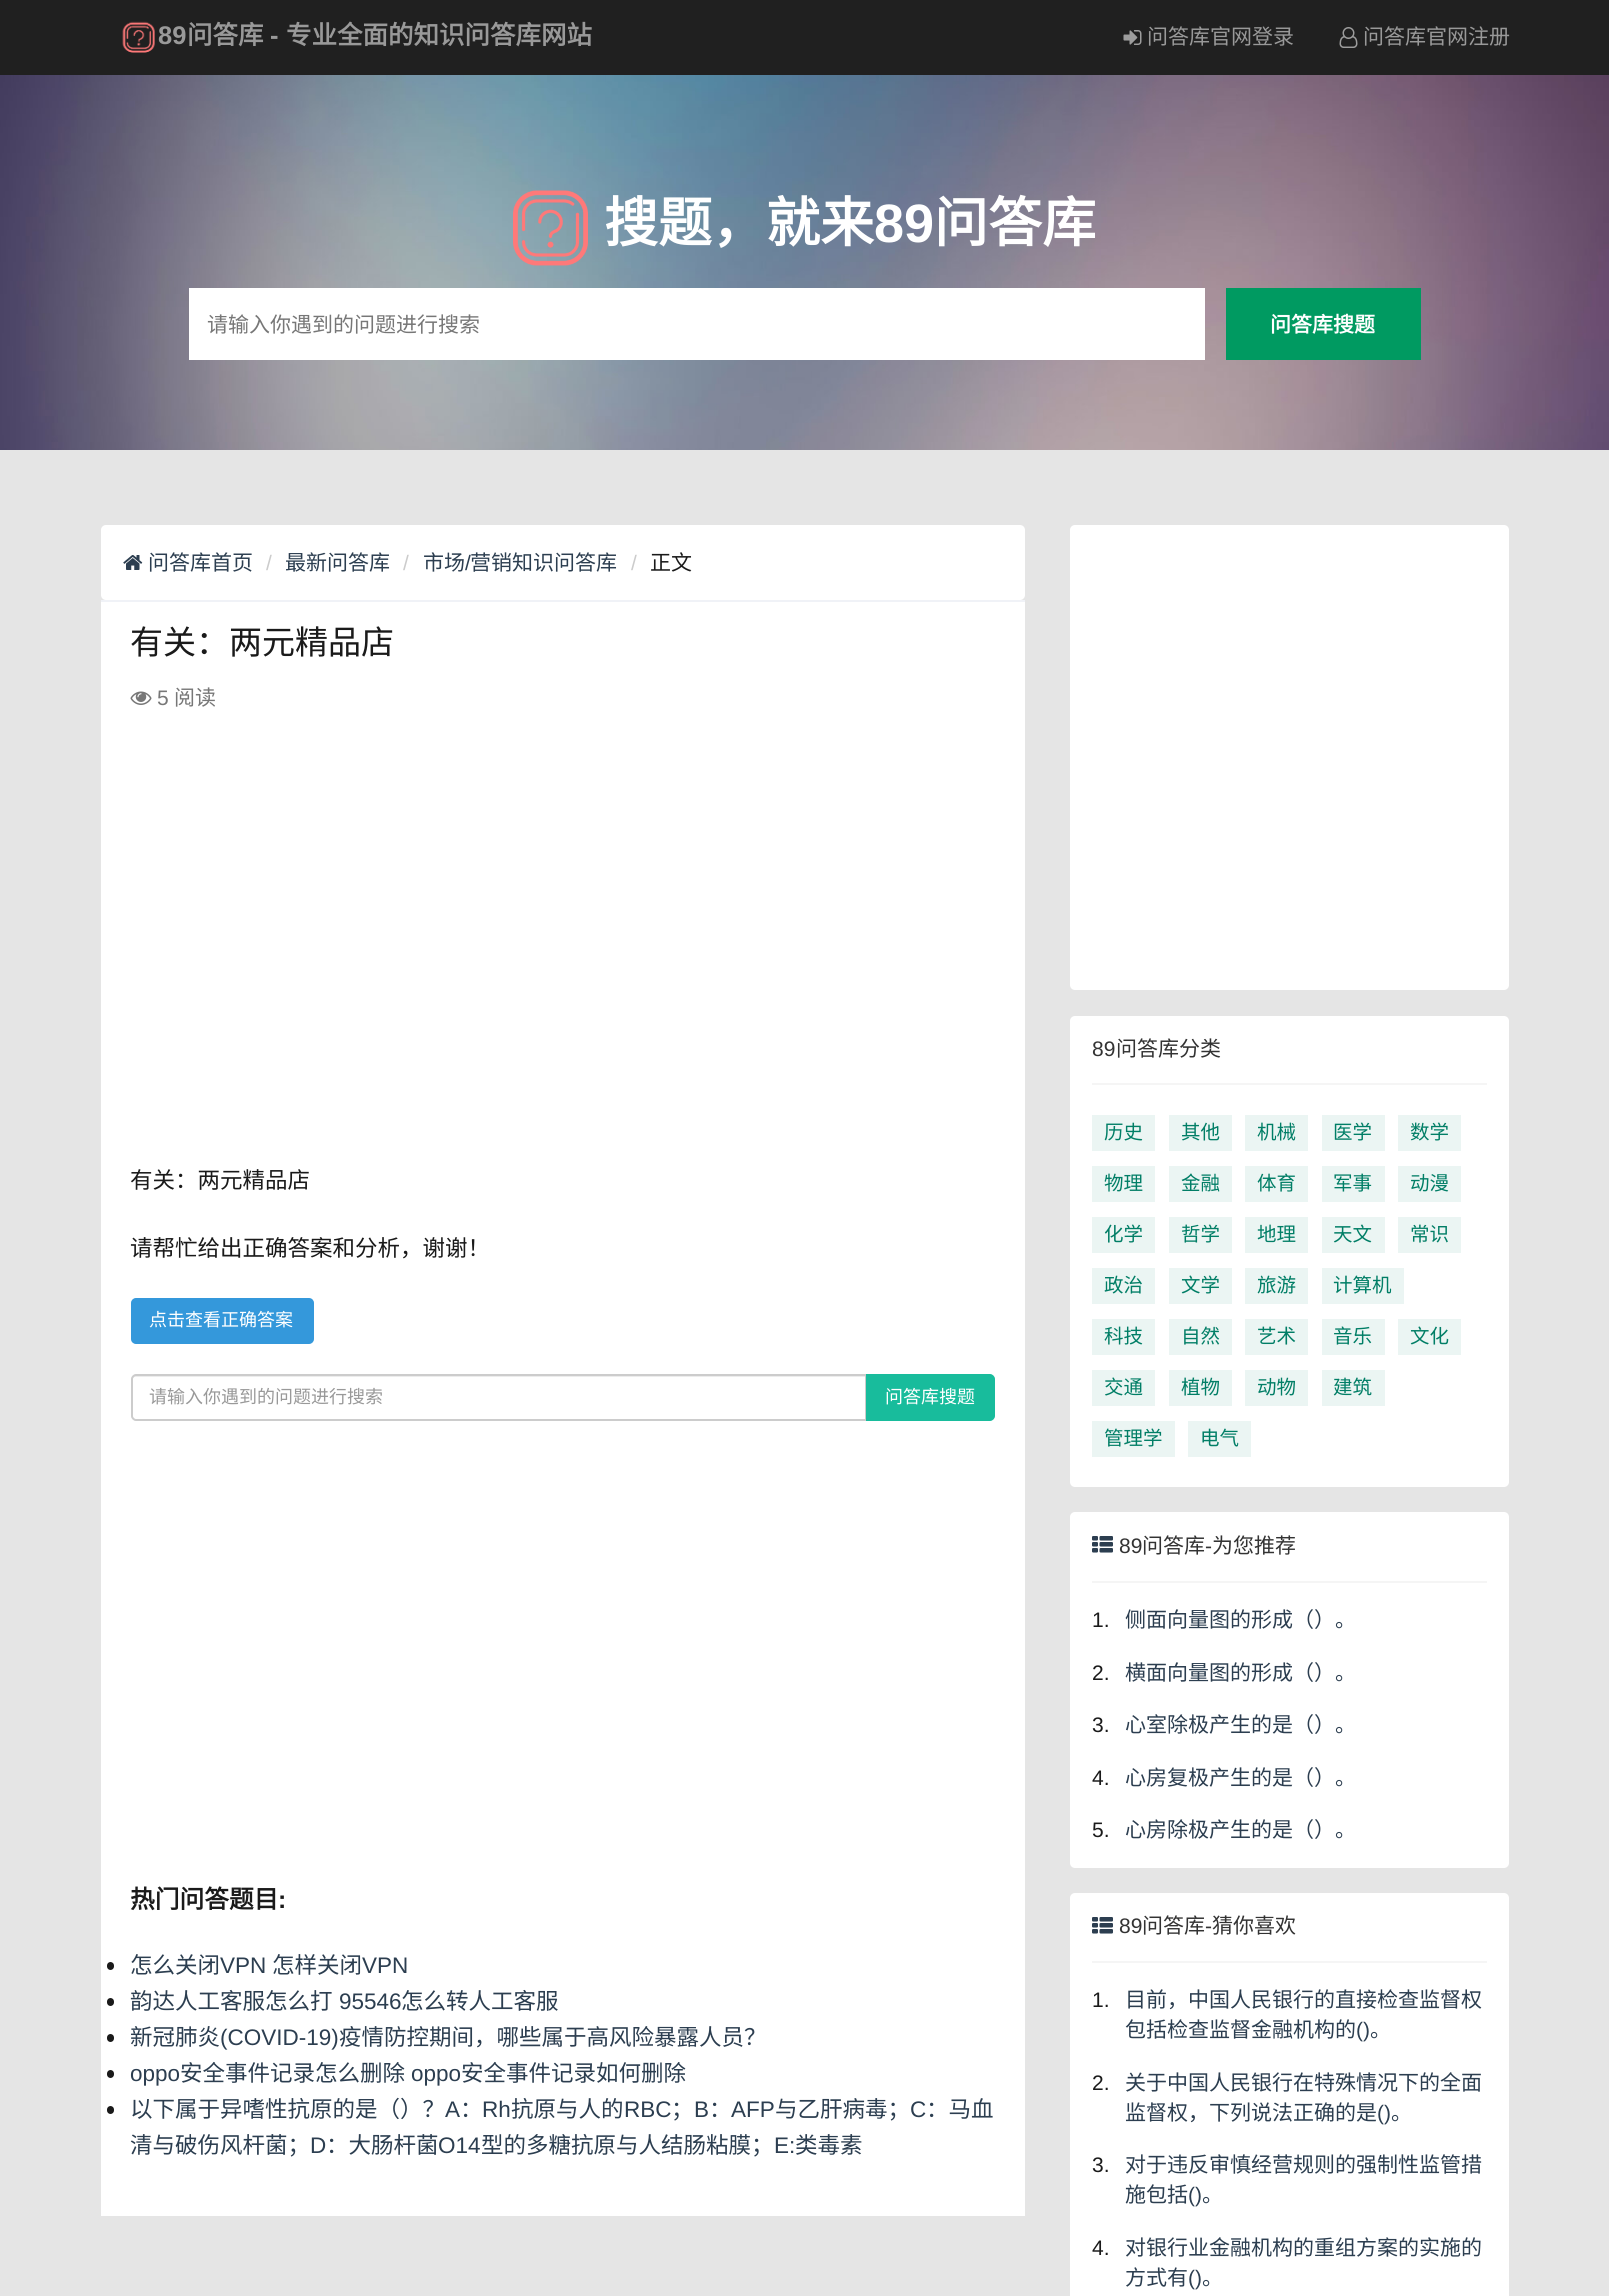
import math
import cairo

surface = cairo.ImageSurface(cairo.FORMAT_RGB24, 1609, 2296)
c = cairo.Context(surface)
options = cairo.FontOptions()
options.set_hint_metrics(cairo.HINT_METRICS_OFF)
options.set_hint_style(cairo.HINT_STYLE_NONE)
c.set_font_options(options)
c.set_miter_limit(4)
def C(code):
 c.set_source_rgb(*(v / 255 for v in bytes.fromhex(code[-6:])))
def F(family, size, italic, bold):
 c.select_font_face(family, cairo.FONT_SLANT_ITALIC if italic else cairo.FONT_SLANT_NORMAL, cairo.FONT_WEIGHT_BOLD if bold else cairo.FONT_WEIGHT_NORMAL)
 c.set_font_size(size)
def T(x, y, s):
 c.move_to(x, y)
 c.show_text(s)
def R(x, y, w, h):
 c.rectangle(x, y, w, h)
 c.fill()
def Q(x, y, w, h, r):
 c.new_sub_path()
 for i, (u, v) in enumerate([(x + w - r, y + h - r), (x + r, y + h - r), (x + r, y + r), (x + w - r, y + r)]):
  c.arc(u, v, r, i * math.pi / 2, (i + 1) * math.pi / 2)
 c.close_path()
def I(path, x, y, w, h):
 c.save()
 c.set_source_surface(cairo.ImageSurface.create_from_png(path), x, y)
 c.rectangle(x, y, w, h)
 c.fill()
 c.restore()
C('e5e5e5')
c.paint()
C('202020')
R(0,0,1609,75)
I('1.png',122,21,33,32)
F('Liberation Sans',25.5,0,1)
C('999999')
T(158,44,'89')
F('Noto Sans CJK SC',25.5,0,1)
T(187,44,'问答库')
F('Liberation Sans',25.5,0,1)
T(270,44,'-')
F('Noto Sans CJK SC',25.5,0,1)
T(286,44,'专业全面的知识问答库网站')
I('2.png',1123,30,19,15)
F('Noto Sans CJK SC',21,0,0)
T(1147,44,'问答库官网登录')
I('3.png',1339,27,19,21)
T(1363,44,'问答库官网注册')
I('4.png',0,75,1609,375)
I('5.png',513,190,75,76)
F('Noto Sans CJK SC',54,0,1)
C('ffffff')
T(604,242,'搜题，就来')
F('Liberation Sans',54,0,1)
T(874,242,'89')
F('Noto Sans CJK SC',54,0,1)
T(934,242,'问答库')
R(189,288,1016,72)
F('Noto Sans CJK SC',21,0,0)
C('777777')
T(207,332,'请输入你遇到的问题进行搜索')
C('009a61')
R(1226,288,195,72)
F('Noto Sans CJK SC',21,0,1)
C('ffffff')
T(1270,332,'问答库搜题')
C('f0f2f7')
R(101,600,924,2)
C('ffffff')
Q(101,525,924,75,5)
c.fill()
I('6.png',123,555,20,15)
F('Noto Sans CJK SC',21,0,0)
C('2c3e50')
T(148,570,'问答库首页')
F('Liberation Sans',21,0,0)
C('cccccc')
T(266,570,'/')
F('Noto Sans CJK SC',21,0,0)
C('2c3e50')
T(285,570,'最新问答库')
F('Liberation Sans',21,0,0)
C('cccccc')
T(403,570,'/')
F('Noto Sans CJK SC',21,0,0)
C('2c3e50')
T(423,570,'市场')
F('Liberation Sans',21,0,0)
T(465,570,'/')
F('Noto Sans CJK SC',21,0,0)
T(470,570,'营销知识问答库')
F('Liberation Sans',21,0,0)
C('cccccc')
T(631,570,'/')
F('Noto Sans CJK SC',21,0,0)
C('1a1a1a')
T(650,570,'正文')
C('ffffff')
R(101,602,924,1614)
F('Noto Sans CJK SC',33,0,0)
C('1a1a1a')
T(130,654,'有关：两元精品店')
I('7.png',130,691,22,14)
F('Liberation Sans',21,0,0)
C('777777')
T(157,705,'5')
F('Noto Sans CJK SC',21,0,0)
T(174,705,'阅读')
F('Noto Sans CJK SC',22.5,0,0)
C('1a1a1a')
T(130,1188,'有关：两元精品店')
T(130,1256,'请帮忙给出正确答案和分析，谢谢！')
C('3498db')
Q(132,1299,181,44,4)
c.fill_preserve()
c.stroke()
F('Noto Sans CJK SC',18,0,0)
C('ffffff')
T(149,1326,'点击查看正确答案')
C('ececec')
c.new_path()
c.move_to(135,1377)
c.line_to(866,1377)
c.line_to(866,1376)
c.line_to(135,1376)
c.curve_to(133,1376,132,1378,132,1380)
c.curve_to(132,1378,133,1377,135,1377)
c.close_path()
c.fill()
c.new_path()
c.move_to(136,1375)
c.line_to(866,1375)
c.line_to(866,1420)
c.line_to(136,1420)
c.curve_to(134,1420,132,1418,132,1416)
c.line_to(132,1379)
c.curve_to(132,1377,134,1375,136,1375)
c.close_path()
C('cccccc')
c.stroke()
C('999999')
T(149,1403,'请输入你遇到的问题进行搜索')
C('18bc9c')
c.new_path()
c.move_to(867,1375)
c.line_to(990,1375)
c.curve_to(992,1375,994,1377,994,1379)
c.line_to(994,1416)
c.curve_to(994,1418,992,1420,990,1420)
c.line_to(867,1420)
c.close_path()
c.fill_preserve()
c.stroke()
C('ffffff')
T(885,1403,'问答库搜题')
F('Noto Sans CJK SC',24.75,0,1)
C('1a1a1a')
T(130,1908,'热门问答题目')
F('Liberation Sans',24.75,0,1)
T(278,1908,':')
Q(107,1962,7,8,3.5)
c.fill()
F('Noto Sans CJK SC',22.5,0,0)
C('2c3e50')
T(130,1973,'怎么关闭')
F('Liberation Sans',22.5,0,0)
T(220,1973,'VPN')
F('Noto Sans CJK SC',22.5,0,0)
T(272,1973,'怎样关闭')
F('Liberation Sans',22.5,0,0)
T(362,1973,'VPN')
C('1a1a1a')
Q(107,1998,7,8,3.5)
c.fill()
F('Noto Sans CJK SC',22.5,0,0)
C('2c3e50')
T(130,2009,'韵达人工客服怎么打')
F('Liberation Sans',22.5,0,0)
T(339,2009,'95546')
F('Noto Sans CJK SC',22.5,0,0)
T(401,2009,'怎么转人工客服')
C('1a1a1a')
Q(107,2034,7,8,3.5)
c.fill()
C('2c3e50')
T(130,2045,'新冠肺炎')
F('Liberation Sans',22.5,0,0)
T(220,2045,'(COVID-19)')
F('Noto Sans CJK SC',22.5,0,0)
T(339,2045,'疫情防控期间，哪些属于高风险暴露人员？')
C('1a1a1a')
Q(107,2070,7,8,3.5)
c.fill()
F('Liberation Sans',22.5,0,0)
C('2c3e50')
T(130,2081,'oppo')
F('Noto Sans CJK SC',22.5,0,0)
T(180,2081,'安全事件记录怎么删除')
F('Liberation Sans',22.5,0,0)
T(411,2081,'oppo')
F('Noto Sans CJK SC',22.5,0,0)
T(461,2081,'安全事件记录如何删除')
C('1a1a1a')
Q(107,2106,7,8,3.5)
c.fill()
C('2c3e50')
T(130,2117,'以下属于异嗜性抗原的是（）？')
F('Liberation Sans',22.5,0,0)
T(445,2117,'A')
F('Noto Sans CJK SC',22.5,0,0)
T(460,2117,'：')
F('Liberation Sans',22.5,0,0)
T(482,2117,'Rh')
F('Noto Sans CJK SC',22.5,0,0)
T(511,2117,'抗原与人的')
F('Liberation Sans',22.5,0,0)
T(624,2117,'RBC')
F('Noto Sans CJK SC',22.5,0,0)
T(671,2117,'；')
F('Liberation Sans',22.5,0,0)
T(694,2117,'B')
F('Noto Sans CJK SC',22.5,0,0)
T(709,2117,'：')
F('Liberation Sans',22.5,0,0)
T(731,2117,'AFP')
F('Noto Sans CJK SC',22.5,0,0)
T(775,2117,'与乙肝病毒；')
F('Liberation Sans',22.5,0,0)
T(910,2117,'C')
F('Noto Sans CJK SC',22.5,0,0)
T(926,2117,'：马血')
T(130,2153,'清与破伤风杆菌；')
F('Liberation Sans',22.5,0,0)
T(310,2153,'D')
F('Noto Sans CJK SC',22.5,0,0)
T(326,2153,'：大肠杆菌')
F('Liberation Sans',22.5,0,0)
T(438,2153,'O14')
F('Noto Sans CJK SC',22.5,0,0)
T(481,2153,'型的多糖抗原与人结肠粘膜；')
F('Liberation Sans',22.5,0,0)
T(774,2153,'E:')
F('Noto Sans CJK SC',22.5,0,0)
T(795,2153,'类毒素')
C('ffffff')
Q(1070,525,439,465,5)
c.fill()
Q(1070,1016,439,471,5)
c.fill()
C('f5f5f5')
R(1092,1083,395,2)
F('Liberation Sans',21,0,0)
C('333333')
T(1092,1056,'89')
F('Noto Sans CJK SC',21,0,0)
T(1116,1056,'问答库分类')
C('ebf5f3')
R(1092,1115,63,36)
F('Noto Sans CJK SC',19.5,0,0)
C('017e66')
T(1104,1139,'历史')
C('ebf5f3')
R(1169,1115,63,36)
C('017e66')
T(1181,1139,'其他')
C('ebf5f3')
R(1245,1115,63,36)
C('017e66')
T(1257,1139,'机械')
C('ebf5f3')
R(1322,1115,63,36)
C('017e66')
T(1333,1139,'医学')
C('ebf5f3')
R(1398,1115,63,36)
C('017e66')
T(1410,1139,'数学')
C('ebf5f3')
R(1092,1166,63,36)
C('017e66')
T(1104,1190,'物理')
C('ebf5f3')
R(1169,1166,63,36)
C('017e66')
T(1181,1190,'金融')
C('ebf5f3')
R(1245,1166,63,36)
C('017e66')
T(1257,1190,'体育')
C('ebf5f3')
R(1322,1166,63,36)
C('017e66')
T(1333,1190,'军事')
C('ebf5f3')
R(1398,1166,63,36)
C('017e66')
T(1410,1190,'动漫')
C('ebf5f3')
R(1092,1217,63,36)
C('017e66')
T(1104,1241,'化学')
C('ebf5f3')
R(1169,1217,63,36)
C('017e66')
T(1181,1241,'哲学')
C('ebf5f3')
R(1245,1217,63,36)
C('017e66')
T(1257,1241,'地理')
C('ebf5f3')
R(1322,1217,63,36)
C('017e66')
T(1333,1241,'天文')
C('ebf5f3')
R(1398,1217,63,36)
C('017e66')
T(1410,1241,'常识')
C('ebf5f3')
R(1092,1268,63,36)
C('017e66')
T(1104,1292,'政治')
C('ebf5f3')
R(1169,1268,63,36)
C('017e66')
T(1181,1292,'文学')
C('ebf5f3')
R(1245,1268,63,36)
C('017e66')
T(1257,1292,'旅游')
C('ebf5f3')
R(1322,1268,82,36)
C('017e66')
T(1333,1292,'计算机')
C('ebf5f3')
R(1092,1319,63,36)
C('017e66')
T(1104,1343,'科技')
C('ebf5f3')
R(1169,1319,63,36)
C('017e66')
T(1181,1343,'自然')
C('ebf5f3')
R(1245,1319,63,36)
C('017e66')
T(1257,1343,'艺术')
C('ebf5f3')
R(1322,1319,63,36)
C('017e66')
T(1333,1343,'音乐')
C('ebf5f3')
R(1398,1319,63,36)
C('017e66')
T(1410,1343,'文化')
C('ebf5f3')
R(1092,1370,63,36)
C('017e66')
T(1104,1394,'交通')
C('ebf5f3')
R(1169,1370,63,36)
C('017e66')
T(1181,1394,'植物')
C('ebf5f3')
R(1245,1370,63,36)
C('017e66')
T(1257,1394,'动物')
C('ebf5f3')
R(1322,1370,63,36)
C('017e66')
T(1333,1394,'建筑')
C('ebf5f3')
R(1092,1421,83,36)
C('017e66')
T(1104,1445,'管理学')
C('ebf5f3')
R(1188,1421,63,36)
C('017e66')
T(1200,1445,'电气')
C('ffffff')
Q(1070,1512,439,356,5)
c.fill()
C('f5f5f5')
R(1092,1581,395,2)
I('8.png',1092,1536,21,17)
F('Liberation Sans',21,0,0)
C('333333')
T(1119,1553,'89')
F('Noto Sans CJK SC',21,0,0)
T(1142,1553,'问答库')
F('Liberation Sans',21,0,0)
T(1205,1553,'-')
F('Noto Sans CJK SC',21,0,0)
T(1212,1553,'为您推荐')
F('Liberation Sans',21,0,0)
C('1a1a1a')
T(1092,1627,'1.')
F('Noto Sans CJK SC',21,0,0)
C('2c3e50')
T(1125,1627,'侧面向量图的形成（）。')
F('Liberation Sans',21,0,0)
C('1a1a1a')
T(1092,1680,'2.')
F('Noto Sans CJK SC',21,0,0)
C('2c3e50')
T(1125,1680,'横面向量图的形成（）。')
F('Liberation Sans',21,0,0)
C('1a1a1a')
T(1092,1732,'3.')
F('Noto Sans CJK SC',21,0,0)
C('2c3e50')
T(1125,1732,'心室除极产生的是（）。')
F('Liberation Sans',21,0,0)
C('1a1a1a')
T(1092,1785,'4.')
F('Noto Sans CJK SC',21,0,0)
C('2c3e50')
T(1125,1785,'心房复极产生的是（）。')
F('Liberation Sans',21,0,0)
C('1a1a1a')
T(1092,1837,'5.')
F('Noto Sans CJK SC',21,0,0)
C('2c3e50')
T(1125,1837,'心房除极产生的是（）。')
C('ffffff')
Q(1070,1893,439,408,5)
c.fill()
C('f5f5f5')
R(1092,1961,395,2)
I('8.png',1092,1917,21,17)
F('Liberation Sans',21,0,0)
C('333333')
T(1119,1933,'89')
F('Noto Sans CJK SC',21,0,0)
T(1142,1933,'问答库')
F('Liberation Sans',21,0,0)
T(1205,1933,'-')
F('Noto Sans CJK SC',21,0,0)
T(1212,1933,'猜你喜欢')
F('Liberation Sans',21,0,0)
C('1a1a1a')
T(1092,2007,'1.')
F('Noto Sans CJK SC',21,0,0)
C('2c3e50')
T(1125,2007,'目前，中国人民银行的直接检查监督权')
T(1125,2037,'包括检查监督金融机构的')
F('Liberation Sans',21,0,0)
T(1356,2037,'()')
F('Noto Sans CJK SC',21,0,0)
T(1370,2037,'。')
F('Liberation Sans',21,0,0)
C('1a1a1a')
T(1092,2090,'2.')
F('Noto Sans CJK SC',21,0,0)
C('2c3e50')
T(1125,2090,'关于中国人民银行在特殊情况下的全面')
T(1125,2120,'监督权，下列说法正确的是')
F('Liberation Sans',21,0,0)
T(1377,2120,'()')
F('Noto Sans CJK SC',21,0,0)
T(1391,2120,'。')
F('Liberation Sans',21,0,0)
C('1a1a1a')
T(1092,2172,'3.')
F('Noto Sans CJK SC',21,0,0)
C('2c3e50')
T(1125,2172,'对于违反审慎经营规则的强制性监管措')
T(1125,2202,'施包括')
F('Liberation Sans',21,0,0)
T(1188,2202,'()')
F('Noto Sans CJK SC',21,0,0)
T(1202,2202,'。')
F('Liberation Sans',21,0,0)
C('1a1a1a')
T(1092,2255,'4.')
F('Noto Sans CJK SC',21,0,0)
C('2c3e50')
T(1125,2255,'对银行业金融机构的重组方案的实施的')
T(1125,2285,'方式有')
F('Liberation Sans',21,0,0)
T(1188,2285,'()')
F('Noto Sans CJK SC',21,0,0)
T(1202,2285,'。')
surface.write_to_png('o.png')
